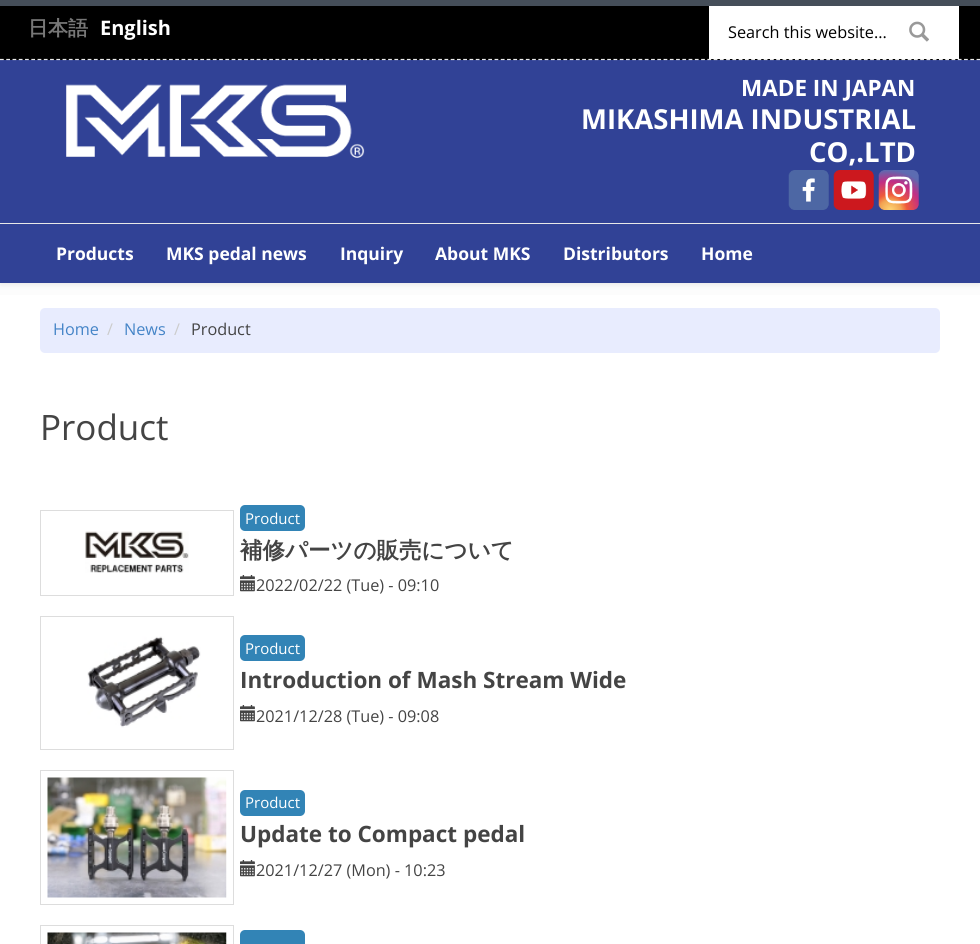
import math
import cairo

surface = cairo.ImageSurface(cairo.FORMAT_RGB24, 980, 944)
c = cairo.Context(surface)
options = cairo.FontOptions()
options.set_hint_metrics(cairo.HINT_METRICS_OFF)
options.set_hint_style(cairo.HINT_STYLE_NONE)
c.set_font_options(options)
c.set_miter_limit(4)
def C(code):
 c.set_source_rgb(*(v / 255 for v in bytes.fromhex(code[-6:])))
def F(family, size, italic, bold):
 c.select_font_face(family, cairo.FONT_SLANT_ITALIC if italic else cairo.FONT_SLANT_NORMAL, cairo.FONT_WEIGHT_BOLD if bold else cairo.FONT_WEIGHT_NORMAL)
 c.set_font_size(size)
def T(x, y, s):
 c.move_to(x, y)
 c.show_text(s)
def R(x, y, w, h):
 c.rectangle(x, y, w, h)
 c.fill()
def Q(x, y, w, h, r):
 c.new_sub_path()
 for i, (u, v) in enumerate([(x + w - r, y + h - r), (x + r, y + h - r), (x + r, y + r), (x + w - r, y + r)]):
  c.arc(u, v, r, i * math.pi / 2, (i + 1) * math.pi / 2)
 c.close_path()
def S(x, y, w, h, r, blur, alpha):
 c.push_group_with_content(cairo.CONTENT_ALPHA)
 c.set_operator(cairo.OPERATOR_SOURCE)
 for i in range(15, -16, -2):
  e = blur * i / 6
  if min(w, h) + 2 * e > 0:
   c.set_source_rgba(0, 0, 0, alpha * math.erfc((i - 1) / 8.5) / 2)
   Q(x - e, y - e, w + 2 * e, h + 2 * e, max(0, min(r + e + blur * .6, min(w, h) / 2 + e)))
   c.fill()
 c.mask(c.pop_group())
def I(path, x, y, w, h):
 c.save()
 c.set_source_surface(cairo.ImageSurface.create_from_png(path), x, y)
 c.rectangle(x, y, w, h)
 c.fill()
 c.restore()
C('ffffff')
c.paint()
C('000000')
R(0,6,980,54)
C('454e59')
R(0,0,980,6)
C('314296')
R(0,60,980,163)
c.new_path()
c.move_to(0,59.5)
c.line_to(980,59.5)
C('eaeaea')
c.set_line_width(1.2)
c.set_dash([3.75,2.51])
c.stroke()
F('WenQuanYi Zen Hei',20,0,1)
C('777777')
T(28,35,'日本語')
F('Open Sans',20,0,1)
C('ffffff')
T(100,35,'English')
R(709,6,250,53)
F('Open Sans',16.25,0,0)
C('000000')
T(728,38,'Search this website...')
I('1.png',909,21,20,21)
C('eaeaea')
R(0,223,980,1)
I('2.png',66,84,299,74)
F('Open Sans',22.5,0,1)
C('ffffff')
T(741,96,'MADE IN JAPAN')
F('Open Sans',27.5,0,1)
T(581,129,'MIKASHIMA INDUSTRIAL')
T(809,162,'CO,.LTD')
I('3.png',788,170,41,40)
I('4.png',833,170,41,40)
I('5.png',878,170,41,40)
C('fcfcfc')
R(0,283,980,12)
C('000000')
S(0,226,980,59,0,2.5,.07)
C('314296')
R(0,224,980,59)
F('Open Sans',17.5,0,1)
C('ffffff')
T(56,260,'Products')
T(166,260,'MKS pedal news')
T(340,260,'Inquiry')
T(435,260,'About MKS')
T(563,260,'Distributors')
T(701,260,'Home')
C('e8ecfe')
Q(40,308,900,45,5)
c.fill()
F('Open Sans',16.25,0,0)
C('4484c7')
T(53,335,'Home')
C('cccccc')
T(107,335,'/')
C('4484c7')
T(124,335,'News')
C('cccccc')
T(174,335,'/')
C('444444')
T(191,335,'Product')
F('Open Sans',35,0,0)
T(40,440,'Product')
c.rectangle(40.5,510.5,193,85)
C('dddddd')
c.set_line_width(1)
c.set_dash([])
c.stroke()
I('6.png',85,531,104,42)
C('3284b6')
Q(240,505,65,26,5)
c.fill()
F('Open Sans',15,0,0)
C('ffffff')
T(245,524,'Product')
F('WenQuanYi Zen Hei',22.5,0,1)
C('444444')
T(240,558,'補修パーツの販売について')
I('7.png',240,575,15,17)
F('Open Sans',16.25,0,0)
T(256,591,'2022/02/22 (Tue) - 09:10')
c.rectangle(40.5,616.5,193,133)
C('dddddd')
c.stroke()
I('8.png',87,636,114,92)
C('3284b6')
Q(240,635,65,26,5)
c.fill()
F('Open Sans',15,0,0)
C('ffffff')
T(245,654,'Product')
F('Open Sans',22.5,0,1)
C('444444')
T(240,688,'Introduction of Mash Stream Wide')
I('7.png',240,705,15,17)
F('Open Sans',16.25,0,0)
T(256,722,'2021/12/28 (Tue) - 09:08')
c.rectangle(40.5,770.5,193,134)
C('dddddd')
c.stroke()
I('9.png',47,777,180,121)
C('3284b6')
Q(240,790,65,26,5)
c.fill()
F('Open Sans',15,0,0)
C('ffffff')
T(245,808,'Product')
F('Open Sans',22.5,0,1)
C('444444')
T(240,842,'Update to Compact pedal')
I('7.png',240,860,15,17)
F('Open Sans',16.25,0,0)
T(256,876,'2021/12/27 (Mon) - 10:23')
c.rectangle(40.5,925.5,193,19)
C('dddddd')
c.stroke()
I('10.png',47,932,180,12)
C('3284b6')
Q(240,930,65,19,5)
c.fill()
surface.write_to_png('o.png')
